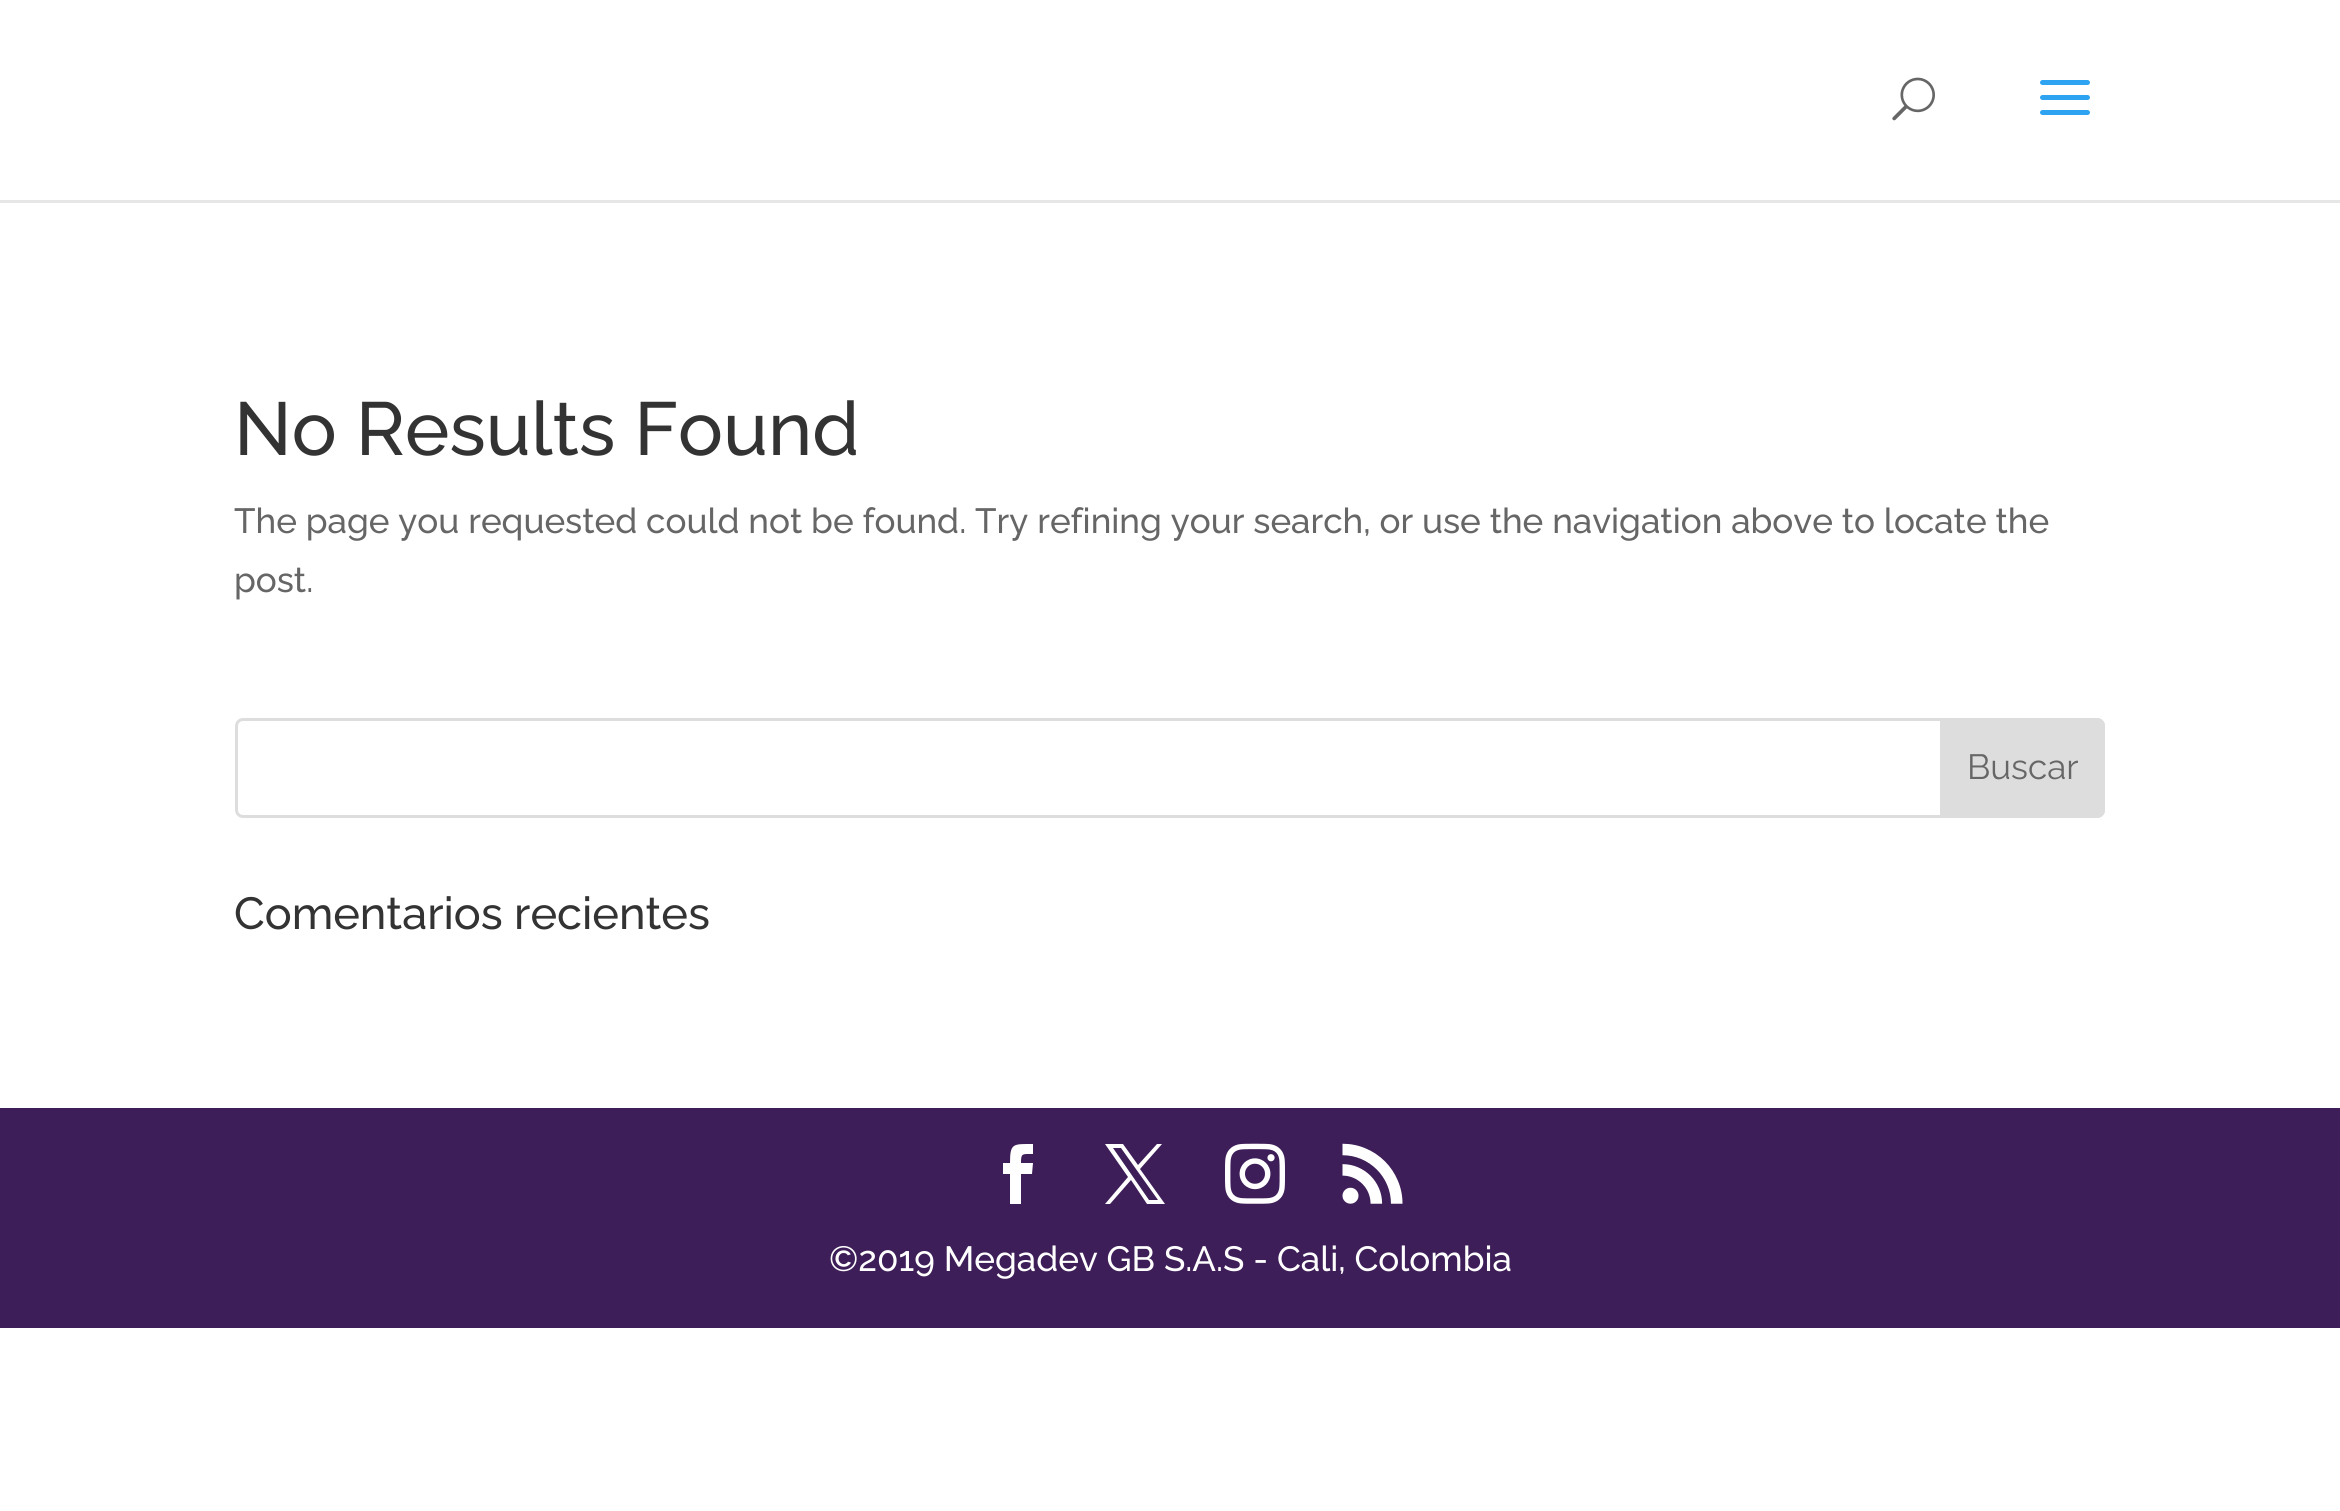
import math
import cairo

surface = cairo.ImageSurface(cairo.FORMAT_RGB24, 2340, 1511)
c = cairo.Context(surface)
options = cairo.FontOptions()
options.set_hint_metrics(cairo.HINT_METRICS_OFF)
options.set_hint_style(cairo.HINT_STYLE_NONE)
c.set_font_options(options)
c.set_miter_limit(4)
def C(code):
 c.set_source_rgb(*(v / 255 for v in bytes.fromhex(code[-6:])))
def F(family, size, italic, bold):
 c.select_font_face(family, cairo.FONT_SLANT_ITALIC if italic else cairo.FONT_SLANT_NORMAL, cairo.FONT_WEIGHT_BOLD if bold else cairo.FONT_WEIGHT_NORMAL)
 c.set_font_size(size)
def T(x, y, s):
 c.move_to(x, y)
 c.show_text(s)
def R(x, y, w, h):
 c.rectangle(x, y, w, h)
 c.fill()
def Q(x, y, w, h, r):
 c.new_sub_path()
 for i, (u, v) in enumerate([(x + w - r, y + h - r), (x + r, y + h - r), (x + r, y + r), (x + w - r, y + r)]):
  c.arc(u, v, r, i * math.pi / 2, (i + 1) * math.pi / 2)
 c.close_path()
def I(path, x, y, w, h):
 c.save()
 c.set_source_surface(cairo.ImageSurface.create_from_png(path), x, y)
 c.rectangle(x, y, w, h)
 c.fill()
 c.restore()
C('ffffff')
c.paint()
C('e6e6e6')
R(0,200,2340,3)
I('1.png',1892,77,43,44)
I('2.png',2040,80,50,35)
F('Raleway Medium',75,0,0)
C('333333')
T(234,455,'No Results Found')
F('Raleway Medium',35,0,0)
C('666666')
T(234,533,'The page you requested could not be found. Try refining your search, or use the navigation above to locate the')
T(234,592,'post.')
Q(236.5,719.5,1867,97,6.5)
C('dddddd')
c.set_line_width(3)
c.stroke()
c.new_path()
c.move_to(1941.5,719.5)
c.line_to(2097,719.5)
c.curve_to(2100.5,719.5,2103.5,722.5,2103.5,726)
c.line_to(2103.5,810)
c.curve_to(2103.5,813.5,2100.5,816.5,2097,816.5)
c.line_to(1941.5,816.5)
c.close_path()
c.fill_preserve()
c.stroke()
F('Raleway',35,0,0)
C('666666')
T(1967,779,'Buscar')
F('Raleway Medium',45,0,0)
C('333333')
T(234,929,'Comentarios recientes')
C('3e1e58')
R(0,1108,2340,220)
C('ffffff')
c.new_path()
c.move_to(1010,1204)
c.line_to(1021,1204)
c.line_to(1021,1174)
c.line_to(1032,1174)
c.line_to(1033,1163)
c.line_to(1021,1163)
c.curve_to(1021,1153,1022,1154,1033,1154)
c.line_to(1033,1144)
c.curve_to(1013,1144,1010,1143,1010,1163)
c.line_to(1003,1163)
c.line_to(1003,1174)
c.line_to(1010,1174)
c.close_path()
c.fill()
c.new_path()
c.move_to(1105,1144)
c.line_to(1128,1177)
c.line_to(1105,1204)
c.line_to(1110,1204)
c.line_to(1131,1180)
c.line_to(1147,1204)
c.line_to(1165,1204)
c.line_to(1140,1169)
c.line_to(1162,1144)
c.line_to(1157,1144)
c.line_to(1138,1165)
c.line_to(1123,1144)
c.close_path()
c.move_to(1113,1148)
c.line_to(1121,1148)
c.line_to(1158,1200)
c.line_to(1149,1200)
c.close_path()
c.fill()
I('3.png',1225,1143,60,61)
I('4.png',1342,1143,61,61)
F('Raleway Medium',35,0,0)
T(829,1271,'©2019 Megadev GB S.A.S - Cali, Colombia')
surface.write_to_png('o.png')
